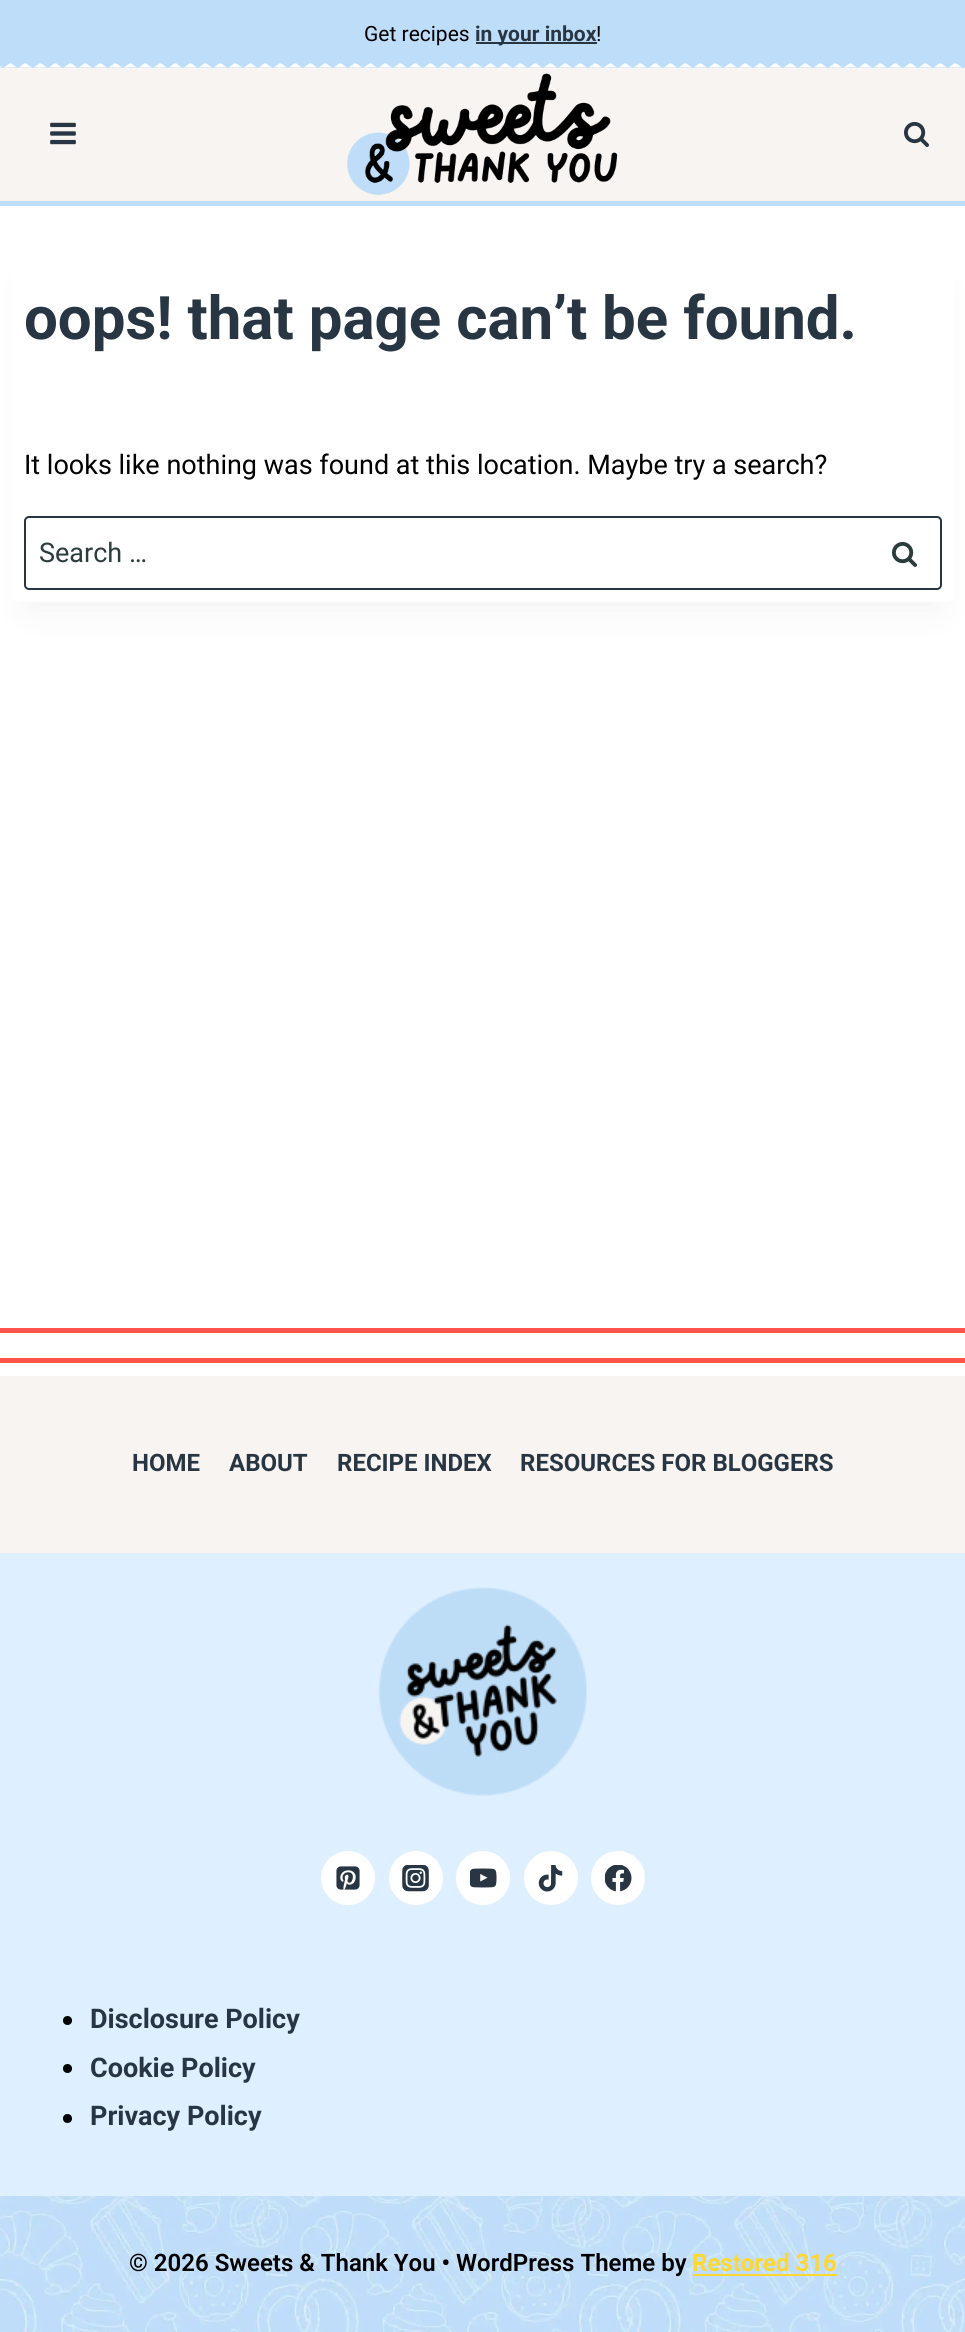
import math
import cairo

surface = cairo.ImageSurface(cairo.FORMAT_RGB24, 965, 2332)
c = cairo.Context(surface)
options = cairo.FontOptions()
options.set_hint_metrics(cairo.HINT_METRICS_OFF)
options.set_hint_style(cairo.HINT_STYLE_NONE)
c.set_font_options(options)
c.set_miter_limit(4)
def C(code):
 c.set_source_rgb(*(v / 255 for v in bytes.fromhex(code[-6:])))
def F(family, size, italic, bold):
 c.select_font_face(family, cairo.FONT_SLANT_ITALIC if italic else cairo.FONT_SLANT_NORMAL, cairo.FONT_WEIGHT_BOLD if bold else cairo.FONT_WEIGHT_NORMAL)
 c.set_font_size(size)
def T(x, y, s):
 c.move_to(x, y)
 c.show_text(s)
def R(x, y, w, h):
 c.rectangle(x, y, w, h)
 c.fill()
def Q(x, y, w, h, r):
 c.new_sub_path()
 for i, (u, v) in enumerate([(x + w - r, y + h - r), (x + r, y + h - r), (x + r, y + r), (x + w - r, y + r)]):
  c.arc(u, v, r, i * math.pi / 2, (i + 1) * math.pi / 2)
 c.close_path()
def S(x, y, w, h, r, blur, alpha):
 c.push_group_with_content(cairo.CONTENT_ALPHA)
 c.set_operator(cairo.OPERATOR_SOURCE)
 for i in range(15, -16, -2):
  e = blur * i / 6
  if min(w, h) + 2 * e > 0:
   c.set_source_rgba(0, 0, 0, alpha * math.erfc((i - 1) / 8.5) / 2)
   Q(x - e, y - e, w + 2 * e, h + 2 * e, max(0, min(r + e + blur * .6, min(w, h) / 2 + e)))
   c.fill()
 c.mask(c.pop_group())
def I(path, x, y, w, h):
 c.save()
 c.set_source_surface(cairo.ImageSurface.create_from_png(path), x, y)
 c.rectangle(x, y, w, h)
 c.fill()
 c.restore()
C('ffffff')
c.paint()
C('beddf8')
R(0,0,965,68)
I('1.png',0,63,965,5)
F('Roboto',21,0,0)
C('000000')
T(364,41,'Get recipes')
C('283643')
R(476,42,121,2)
F('Roboto',21,0,1)
T(475,41,'in your inbox')
F('Roboto',21,0,0)
C('000000')
T(596,41,'!')
C('f7f4f1')
R(0,68,965,133)
C('beddf8')
R(0,201,965,5)
I('2.png',50,122,26,23)
I('3.png',347,73,271,122)
I('4.png',904,121,25,26)
C('000000')
S(27,291,912,318,0,19,.05)
C('ffffff')
Q(12,254,942,348,6)
c.fill()
F('Roboto',60,0,1)
C('283643')
T(24,339,'oops! that page can’t be found.')
F('Roboto',27,0,0)
C('000000')
T(24,474,'It looks like nothing was found at this location. Maybe try a search?')
Q(25,517,916,72,4)
C('283643')
c.stroke()
C('2b3c3c')
T(39,562,'Search …')
I('5.png',892,541,25,26)
C('ff544a')
R(0,1328,965,5)
R(0,1358,965,5)
C('f7f4f1')
R(0,1376,965,177)
F('Roboto',24,0,1)
C('283643')
T(132,1471,'HOME')
T(229,1471,'ABOUT')
T(337,1471,'RECIPE INDEX')
T(520,1471,'RESOURCES FOR BLOGGERS')
C('def0ff')
R(0,1553,965,643)
I('6.png',378,1587,209,209)
C('ffffff')
c.arc(348,1878,27,0,2 * math.pi)
c.fill()
I('7.png',336,1866,24,24)
c.arc(416,1878,27,0,2 * math.pi)
c.fill()
I('8.png',402,1865,27,27)
c.arc(483,1878,27,0,2 * math.pi)
c.fill()
I('9.png',470,1868,27,20)
c.arc(551,1878,27,0,2 * math.pi)
c.fill()
I('10.png',538,1865,25,27)
c.arc(618,1878,27,0,2 * math.pi)
c.fill()
I('11.png',605,1865,27,27)
C('000000')
c.arc(67.5,2020.5,4.5,0,2 * math.pi)
c.fill()
F('Roboto',27,0,1)
C('283643')
T(90,2028,'Disclosure Policy')
C('000000')
c.new_path()
c.arc(67.5,2068.5,4.5,0,2 * math.pi)
c.fill()
C('283643')
T(90,2077,'Cookie Policy')
C('000000')
c.new_path()
c.arc(67.5,2118.5,4.5,0,2 * math.pi)
c.fill()
C('283643')
T(90,2125,'Privacy Policy')
I('12.png',0,2196,965,136)
F('Roboto SemiBold',24,0,0)
C('000000')
T(129,2271,'© 2026 Sweets & Thank You • WordPress Theme by')
F('Roboto',24,0,1)
C('ffd72f')
T(692,2271,'Restored 316')
R(693,2274,144,2)
surface.write_to_png('o.png')
